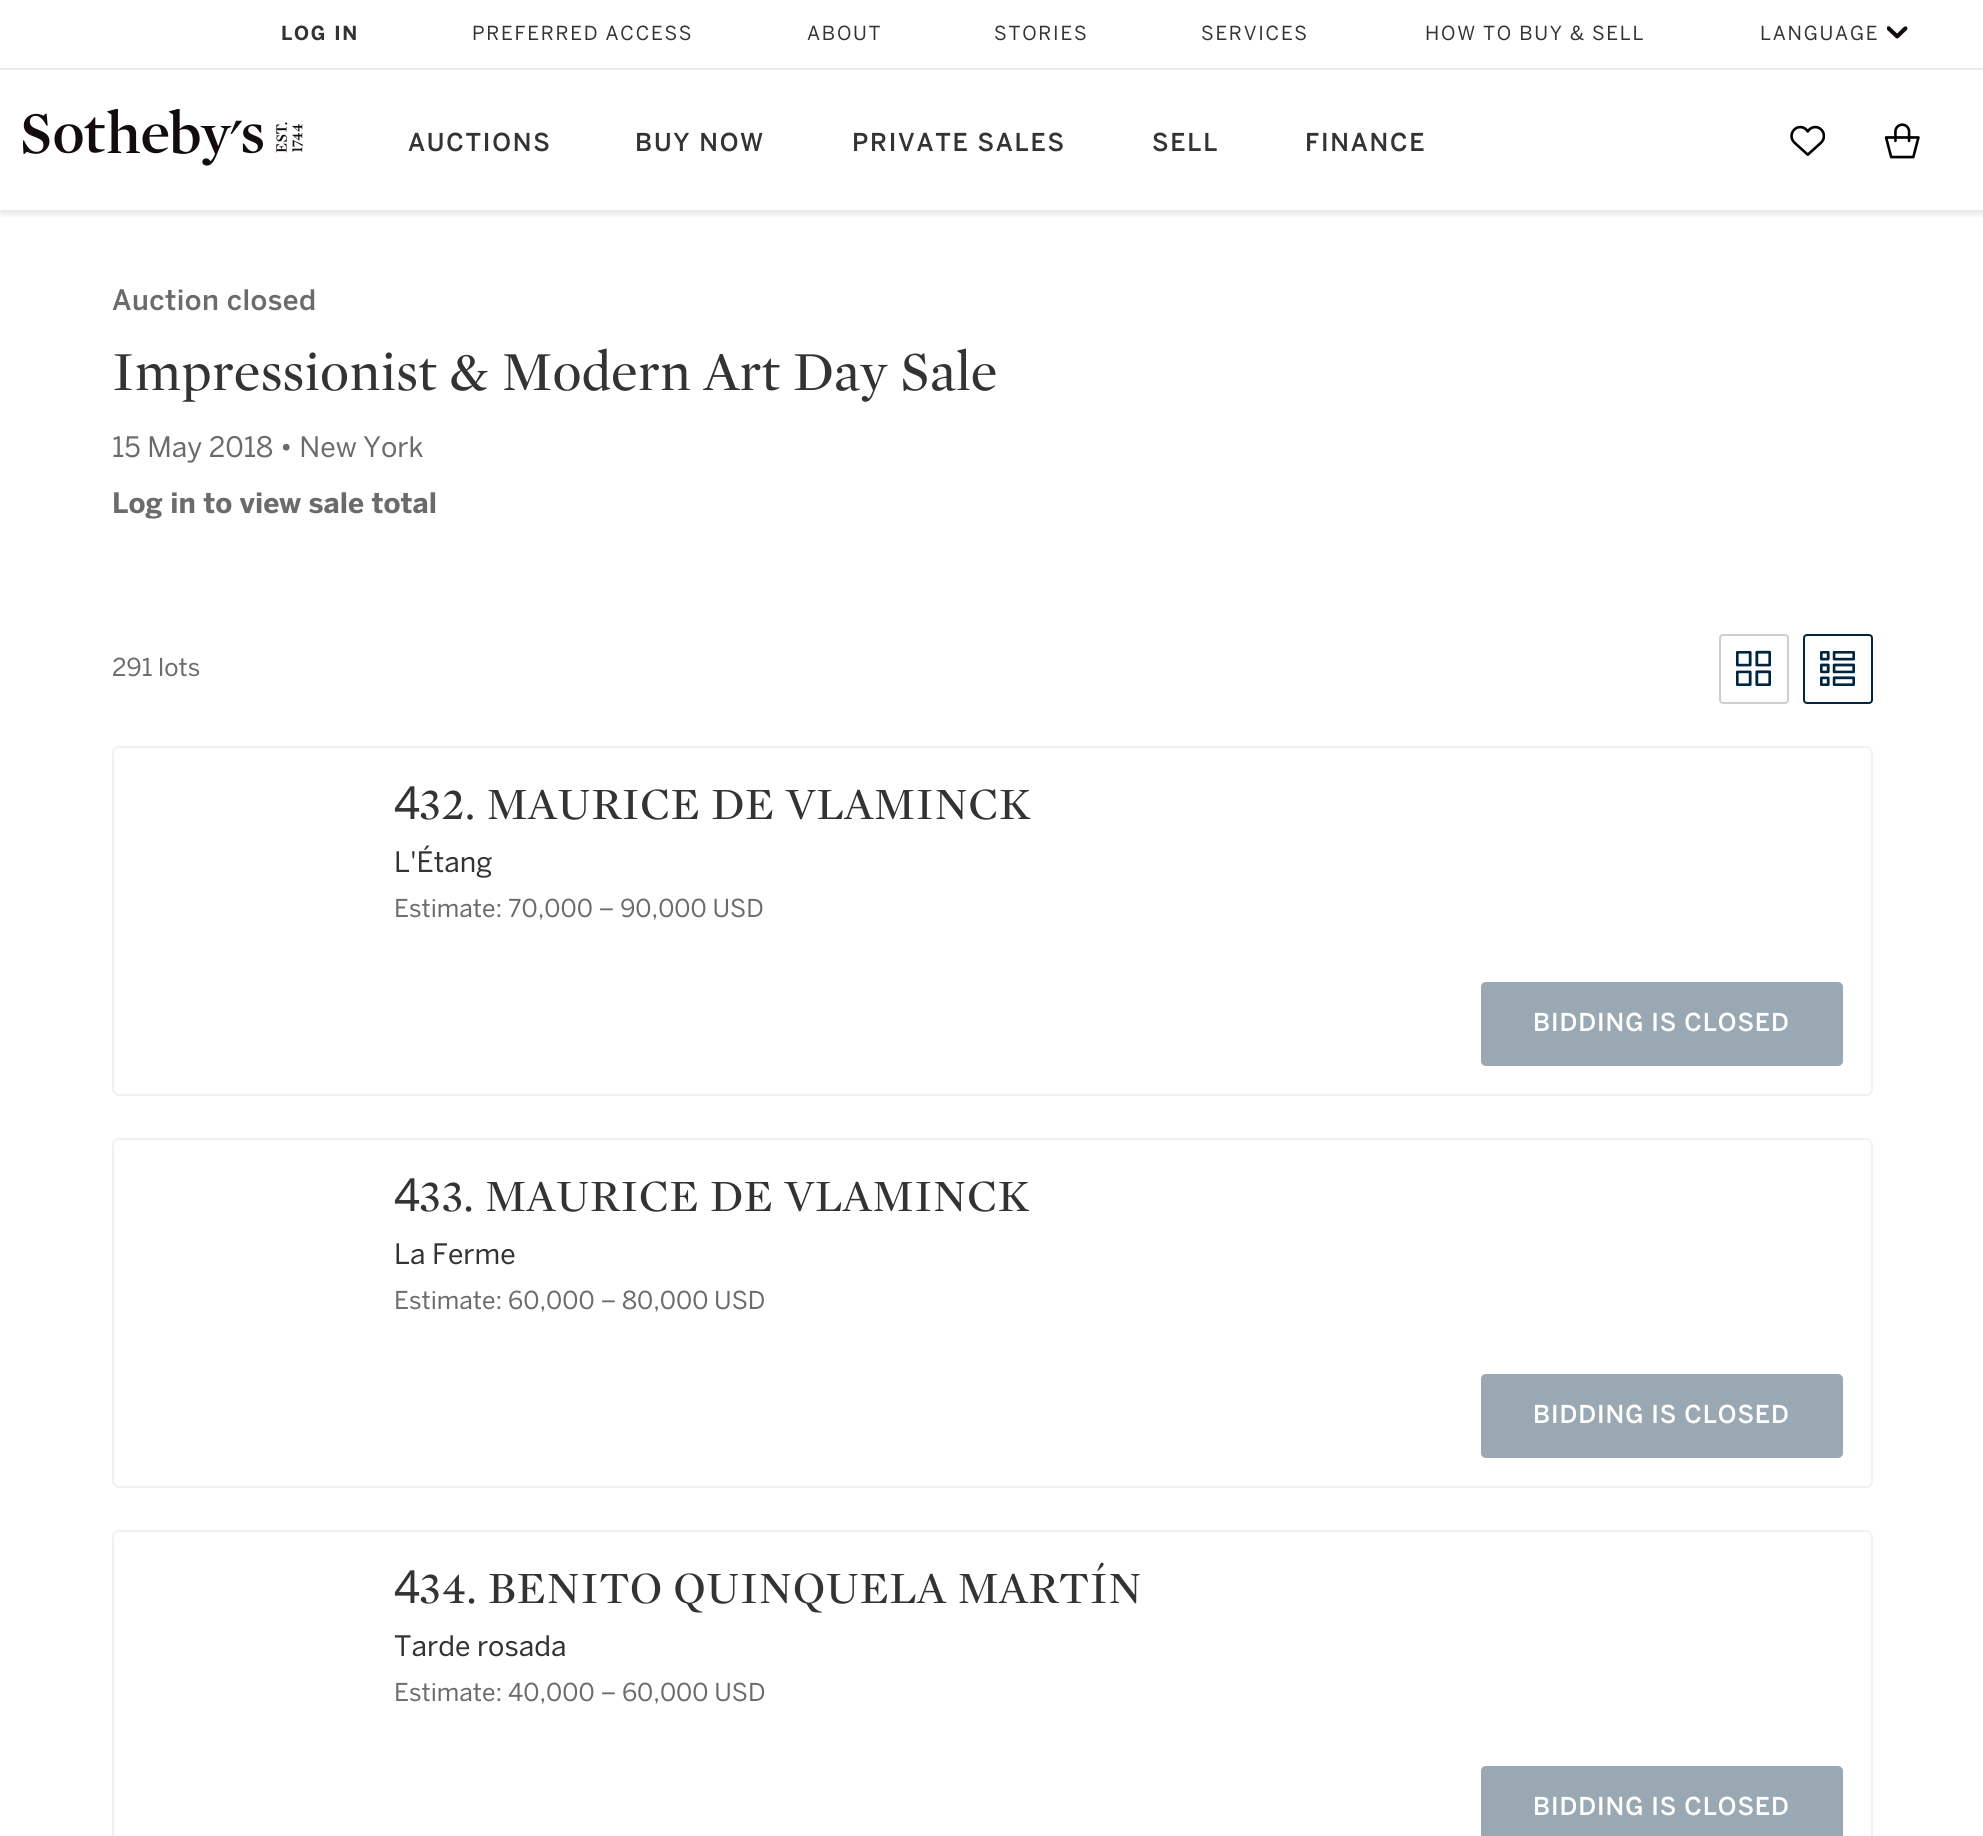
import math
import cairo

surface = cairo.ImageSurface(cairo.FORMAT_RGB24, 1983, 1836)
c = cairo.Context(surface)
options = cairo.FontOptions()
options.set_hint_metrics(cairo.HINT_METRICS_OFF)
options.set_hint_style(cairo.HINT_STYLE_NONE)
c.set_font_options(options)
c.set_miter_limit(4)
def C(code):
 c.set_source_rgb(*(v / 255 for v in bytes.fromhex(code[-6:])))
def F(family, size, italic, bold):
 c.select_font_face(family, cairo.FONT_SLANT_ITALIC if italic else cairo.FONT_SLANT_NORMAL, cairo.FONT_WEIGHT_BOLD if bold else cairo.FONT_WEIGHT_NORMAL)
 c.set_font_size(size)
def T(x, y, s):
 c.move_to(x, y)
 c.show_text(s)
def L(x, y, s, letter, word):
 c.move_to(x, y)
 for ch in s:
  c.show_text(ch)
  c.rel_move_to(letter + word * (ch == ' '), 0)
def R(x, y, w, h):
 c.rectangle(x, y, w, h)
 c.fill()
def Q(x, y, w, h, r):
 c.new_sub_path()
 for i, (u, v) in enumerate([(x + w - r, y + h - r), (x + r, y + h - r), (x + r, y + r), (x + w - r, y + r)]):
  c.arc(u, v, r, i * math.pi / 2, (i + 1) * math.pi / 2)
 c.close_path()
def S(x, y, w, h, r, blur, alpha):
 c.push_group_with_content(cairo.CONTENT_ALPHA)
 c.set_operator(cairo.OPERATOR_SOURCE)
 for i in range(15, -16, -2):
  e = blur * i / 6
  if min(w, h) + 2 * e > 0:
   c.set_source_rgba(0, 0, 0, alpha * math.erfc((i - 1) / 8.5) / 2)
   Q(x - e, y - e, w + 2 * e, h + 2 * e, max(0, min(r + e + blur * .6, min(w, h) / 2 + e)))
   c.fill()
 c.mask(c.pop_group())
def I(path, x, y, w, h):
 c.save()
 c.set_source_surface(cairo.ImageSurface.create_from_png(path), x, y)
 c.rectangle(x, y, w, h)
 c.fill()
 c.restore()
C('ffffff')
c.paint()
c.save()
c.rectangle(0,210,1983,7)
c.clip()
C('000000')
S(0,4,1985,210,0,3.5,.1)
c.restore()
I('1.png',23,109,280,57)
C('ebebeb')
R(0,68,1983,2)
F('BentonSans',19.25,0,1)
C('333333')
L(281,40,'LOG IN',1.75,0)
F('BentonSans',19.25,0,0)
L(472,40,'PREFERRED ACCESS',1.75,0)
L(807,40,'ABOUT',1.75,0)
L(994,40,'STORIES',1.75,0)
L(1201,40,'SERVICES',1.75,0)
L(1425,40,'HOW TO BUY & SELL',1.75,0)
I('2.png',1887,26,21,13)
L(1760,40,'LANGUAGE',1.75,0)
F('BentonSans Medium',24.5,0,0)
L(408,151,'AUCTIONS',1.75,0)
L(635,151,'BUY NOW',1.75,0)
L(852,151,'PRIVATE SALES',1.75,0)
L(1152,151,'SELL',1.75,0)
L(1305,151,'FINANCE',1.75,0)
I('3.png',1884,123,36,36)
I('4.png',1790,125,35,31)
F('BentonSans Medium',28,0,0)
C('6b6b6b')
L(112,310,'Auction closed',.45,0)
F('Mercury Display',56,0,0)
C('333333')
T(112,390,'Impressionist & Modern Art Day Sale')
F('BentonSans',28,0,0)
C('6b6b6b')
T(112,457,'15 May 2018 • New York')
F('BentonSans',28,0,1)
T(112,513,'Log in to view sale total')
F('BentonSans',24.5,0,0)
T(112,676,'291 lots')
Q(1720,635,68,68,3)
C('cecece')
c.stroke()
I('5.png',1736,650,35,36)
Q(1804,635,68,68,3)
C('00253e')
c.stroke()
I('6.png',1820,651,35,35)
Q(113,747,1759,348,6)
C('f1f1f1')
c.stroke()
F('Noto Sans',45.5,0,0)
C('333333')
L(394,819,'4',.45,0)
F('Mercury Display',45.5,0,0)
L(419,819,'32. MAURICE DE VLAMINCK',.45,0)
F('BentonSans',28,0,0)
T(394,872,'L\'Étang')
F('BentonSans',24.5,0,0)
C('6b6b6b')
T(394,917,'Estimate: 70,000 – 90,000 USD')
C('99a8b2')
Q(1481,982,362,84,5)
c.fill()
F('BentonSans Medium',24.5,0,0)
C('ffffff')
L(1533,1031,'BIDDING IS CLOSED',.9,0)
Q(113,1139,1759,348,6)
C('f1f1f1')
c.stroke()
F('Noto Sans',45.5,0,0)
C('333333')
L(394,1211,'4',.45,0)
F('Mercury Display',45.5,0,0)
L(419,1211,'33. MAURICE DE VLAMINCK',.45,0)
F('BentonSans',28,0,0)
T(394,1264,'La Ferme')
F('BentonSans',24.5,0,0)
C('6b6b6b')
T(394,1309,'Estimate: 60,000 – 80,000 USD')
C('99a8b2')
Q(1481,1374,362,84,5)
c.fill()
F('BentonSans Medium',24.5,0,0)
C('ffffff')
L(1533,1423,'BIDDING IS CLOSED',.9,0)
Q(113,1531,1759,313,6)
C('f1f1f1')
c.stroke()
F('Noto Sans',45.5,0,0)
C('333333')
L(394,1603,'4',.45,0)
F('Mercury Display',45.5,0,0)
L(419,1603,'34. BENITO QUINQUELA MARTÍN',.45,0)
F('BentonSans',28,0,0)
T(394,1656,'Tarde rosada')
F('BentonSans',24.5,0,0)
C('6b6b6b')
T(394,1701,'Estimate: 40,000 – 60,000 USD')
C('99a8b2')
Q(1481,1766,362,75,5)
c.fill()
F('BentonSans Medium',24.5,0,0)
C('ffffff')
L(1533,1815,'BIDDING IS CLOSED',.9,0)
surface.write_to_png('o.png')
